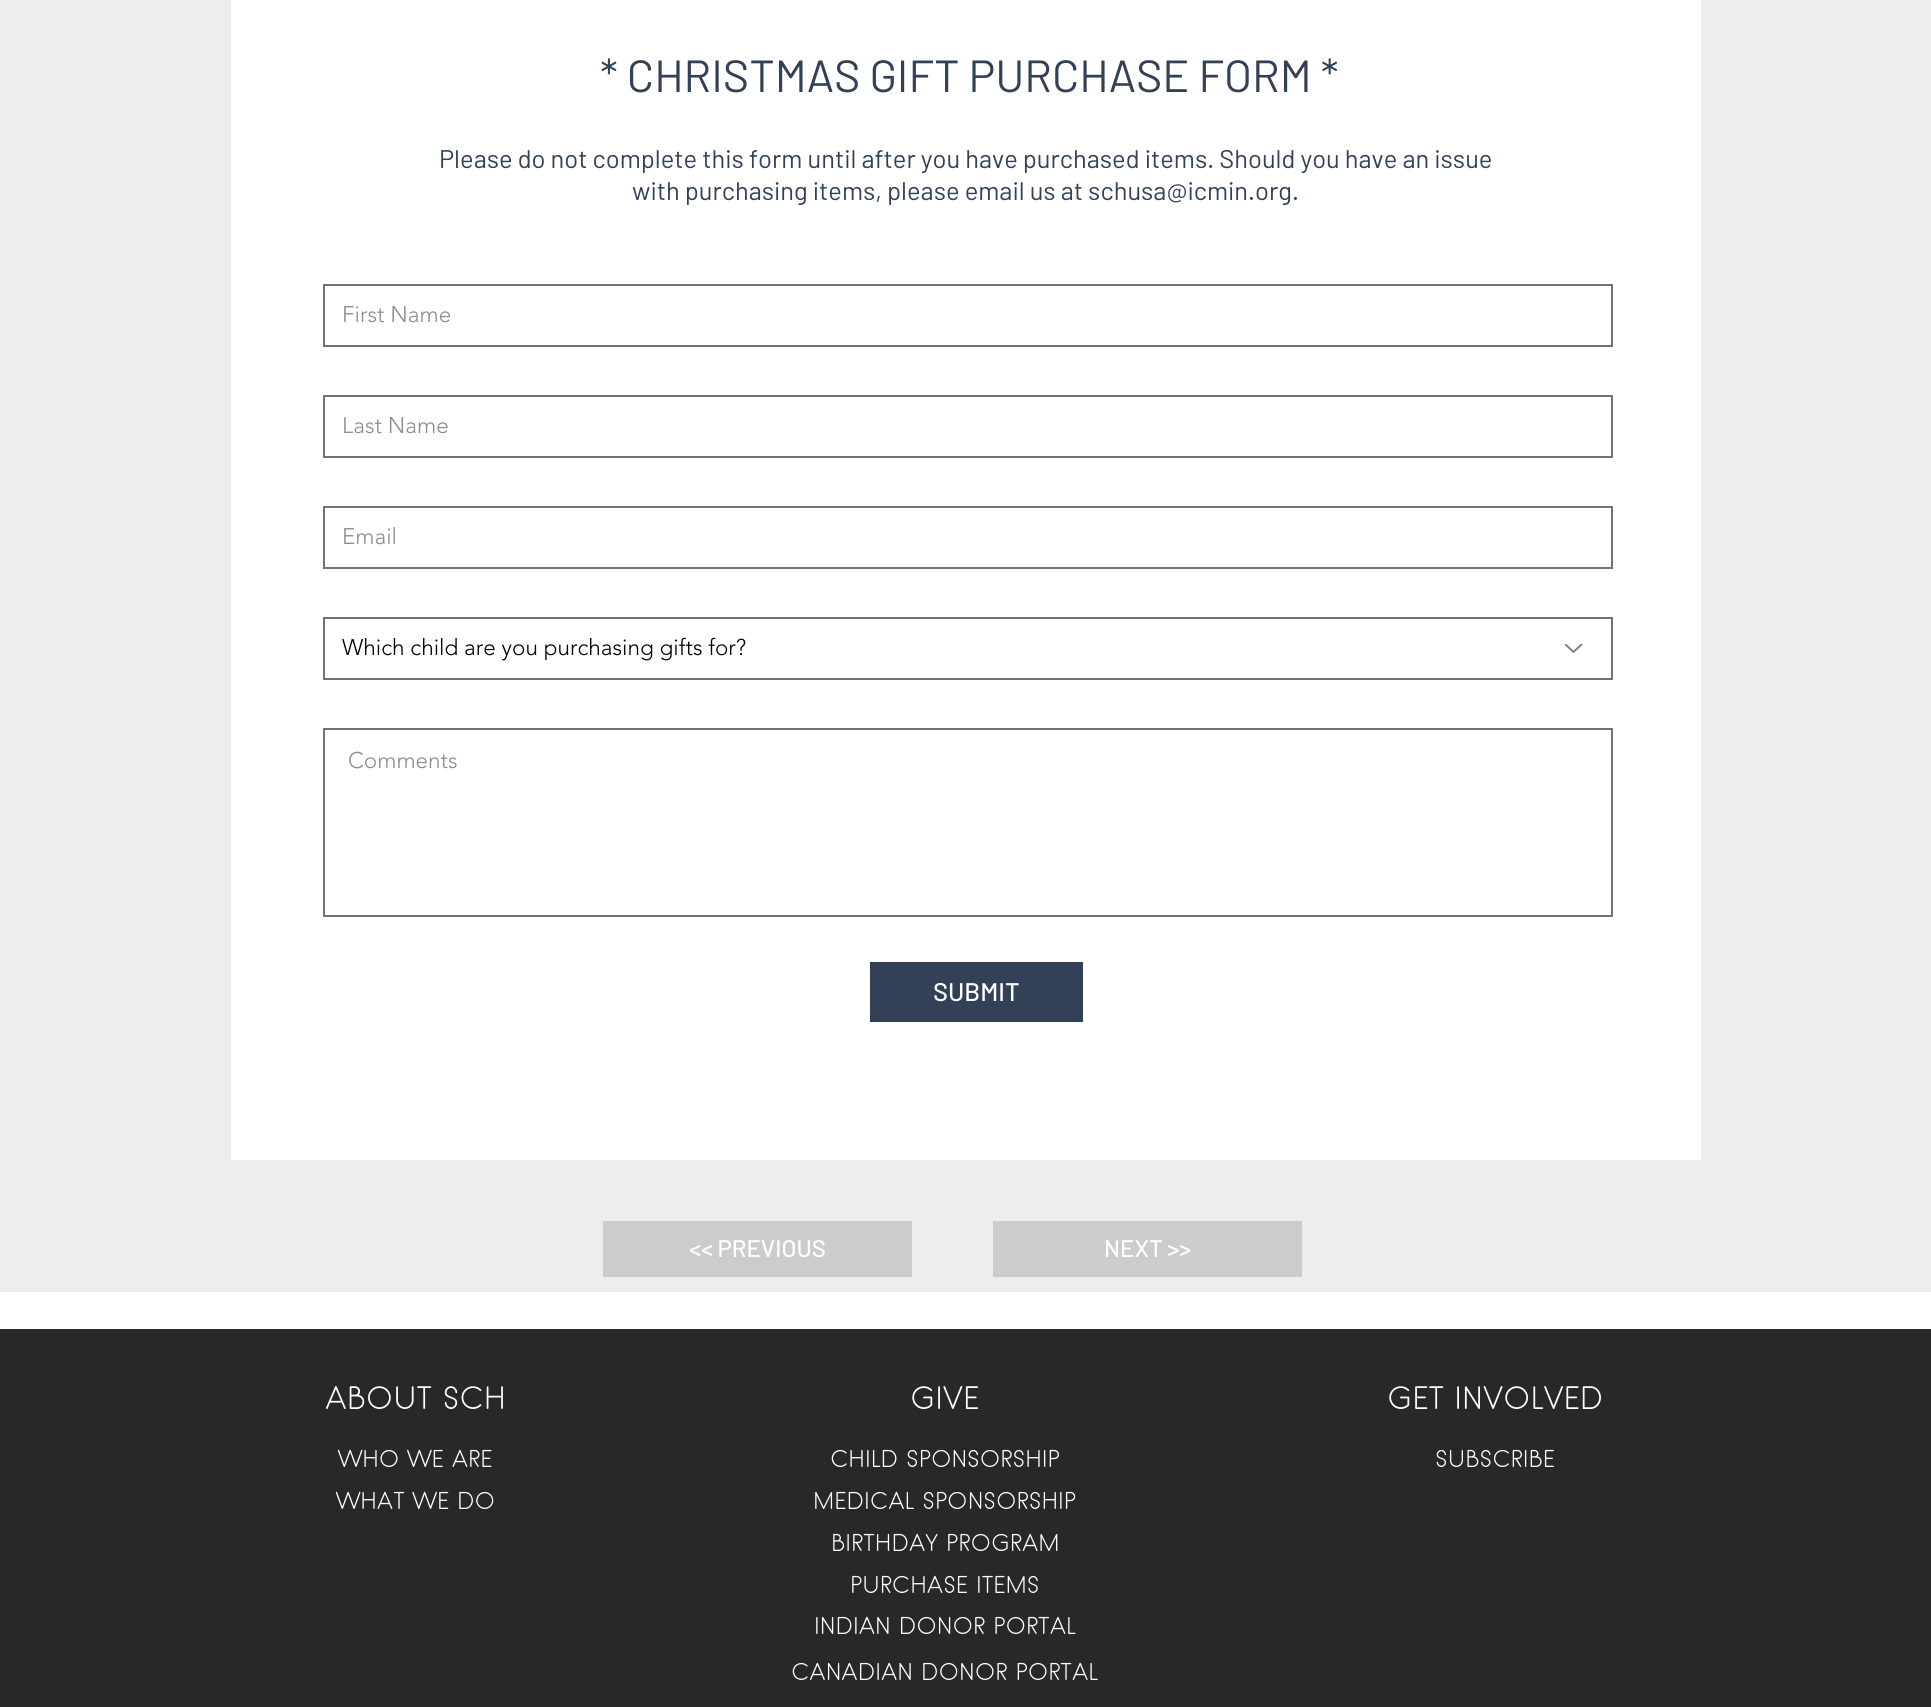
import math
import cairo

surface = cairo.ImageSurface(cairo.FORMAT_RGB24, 1931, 1707)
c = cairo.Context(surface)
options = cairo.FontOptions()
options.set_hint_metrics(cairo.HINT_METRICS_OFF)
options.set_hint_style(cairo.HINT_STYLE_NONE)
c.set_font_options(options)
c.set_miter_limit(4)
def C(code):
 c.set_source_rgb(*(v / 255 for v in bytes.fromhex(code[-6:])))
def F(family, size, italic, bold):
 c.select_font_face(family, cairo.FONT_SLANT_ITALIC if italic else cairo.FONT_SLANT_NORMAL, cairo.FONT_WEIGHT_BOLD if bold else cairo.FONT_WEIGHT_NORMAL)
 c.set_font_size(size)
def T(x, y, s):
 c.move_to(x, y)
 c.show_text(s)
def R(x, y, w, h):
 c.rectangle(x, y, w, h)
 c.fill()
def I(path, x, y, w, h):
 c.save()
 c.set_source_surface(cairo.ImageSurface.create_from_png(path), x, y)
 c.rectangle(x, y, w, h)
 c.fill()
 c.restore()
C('ffffff')
c.paint()
C('ededed')
R(0,0,1931,1292)
C('ffffff')
R(231,0,1470,1160)
F('Barlow',45,0,0)
C('324158')
T(600,92,'* CHRISTMAS GIFT PURCHASE FORM *')
F('Barlow',25.5,0,0)
T(439,168,'Please do not complete this form until after you have purchased items. Should you have an issue')
T(632,200,'with purchasing items, please email us at schusa@icmin.org.')
c.rectangle(324,285,1288,61)
C('737373')
c.stroke()
F('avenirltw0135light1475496 Light',22.5,0,0)
C('8c8c8c')
T(342,322,'First Name')
c.rectangle(324,396,1288,61)
C('737373')
c.stroke()
C('8c8c8c')
T(342,433,'Last Name')
c.rectangle(324,507,1288,61)
C('737373')
c.stroke()
C('8c8c8c')
T(342,544,'Email')
c.rectangle(324,618,1288,61)
C('737373')
c.stroke()
C('000000')
T(342,655,'Which child are you purchasing gifts for?')
I('1.png',1565,644,18,9)
c.rectangle(324,729,1288,187)
C('737373')
c.stroke()
C('8c8c8c')
T(348,768,'Comments')
C('324158')
R(870,962,213,60)
F('Barlow Medium',25.5,0,0)
C('ffffff')
T(933,1001,'SUBMIT')
C('cccccc')
R(603,1221,309,56)
F('Barlow Medium',24,0,0)
C('ffffff')
T(689,1257,'<< PREVIOUS')
C('cccccc')
R(993,1221,309,56)
C('ffffff')
T(1104,1257,'NEXT >>')
C('292828')
R(0,1329,1931,378)
F('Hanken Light',30,0,0)
C('ffffff')
T(325,1409,'ABOUT SCH')
T(910,1409,'GIVE')
F('Hanken Light',22.5,0,0)
T(830,1467,'CHILD SPONSORSHIP')
T(813,1509,'MEDICAL SPONSORSHIP')
T(831,1551,'BIRTHDAY PROGRAM')
T(850,1593,'PURCHASE ITEMS')
T(814,1634,'INDIAN DONOR PORTAL')
T(791,1680,'CANADIAN DONOR PORTAL')
F('Hanken Light',30,0,0)
T(1387,1409,'GET INVOLVED')
F('Hanken Light',22.5,0,0)
T(338,1467,'WHO WE ARE')
T(1435,1467,'SUBSCRIBE')
T(336,1509,'WHAT WE DO')
surface.write_to_png('o.png')
